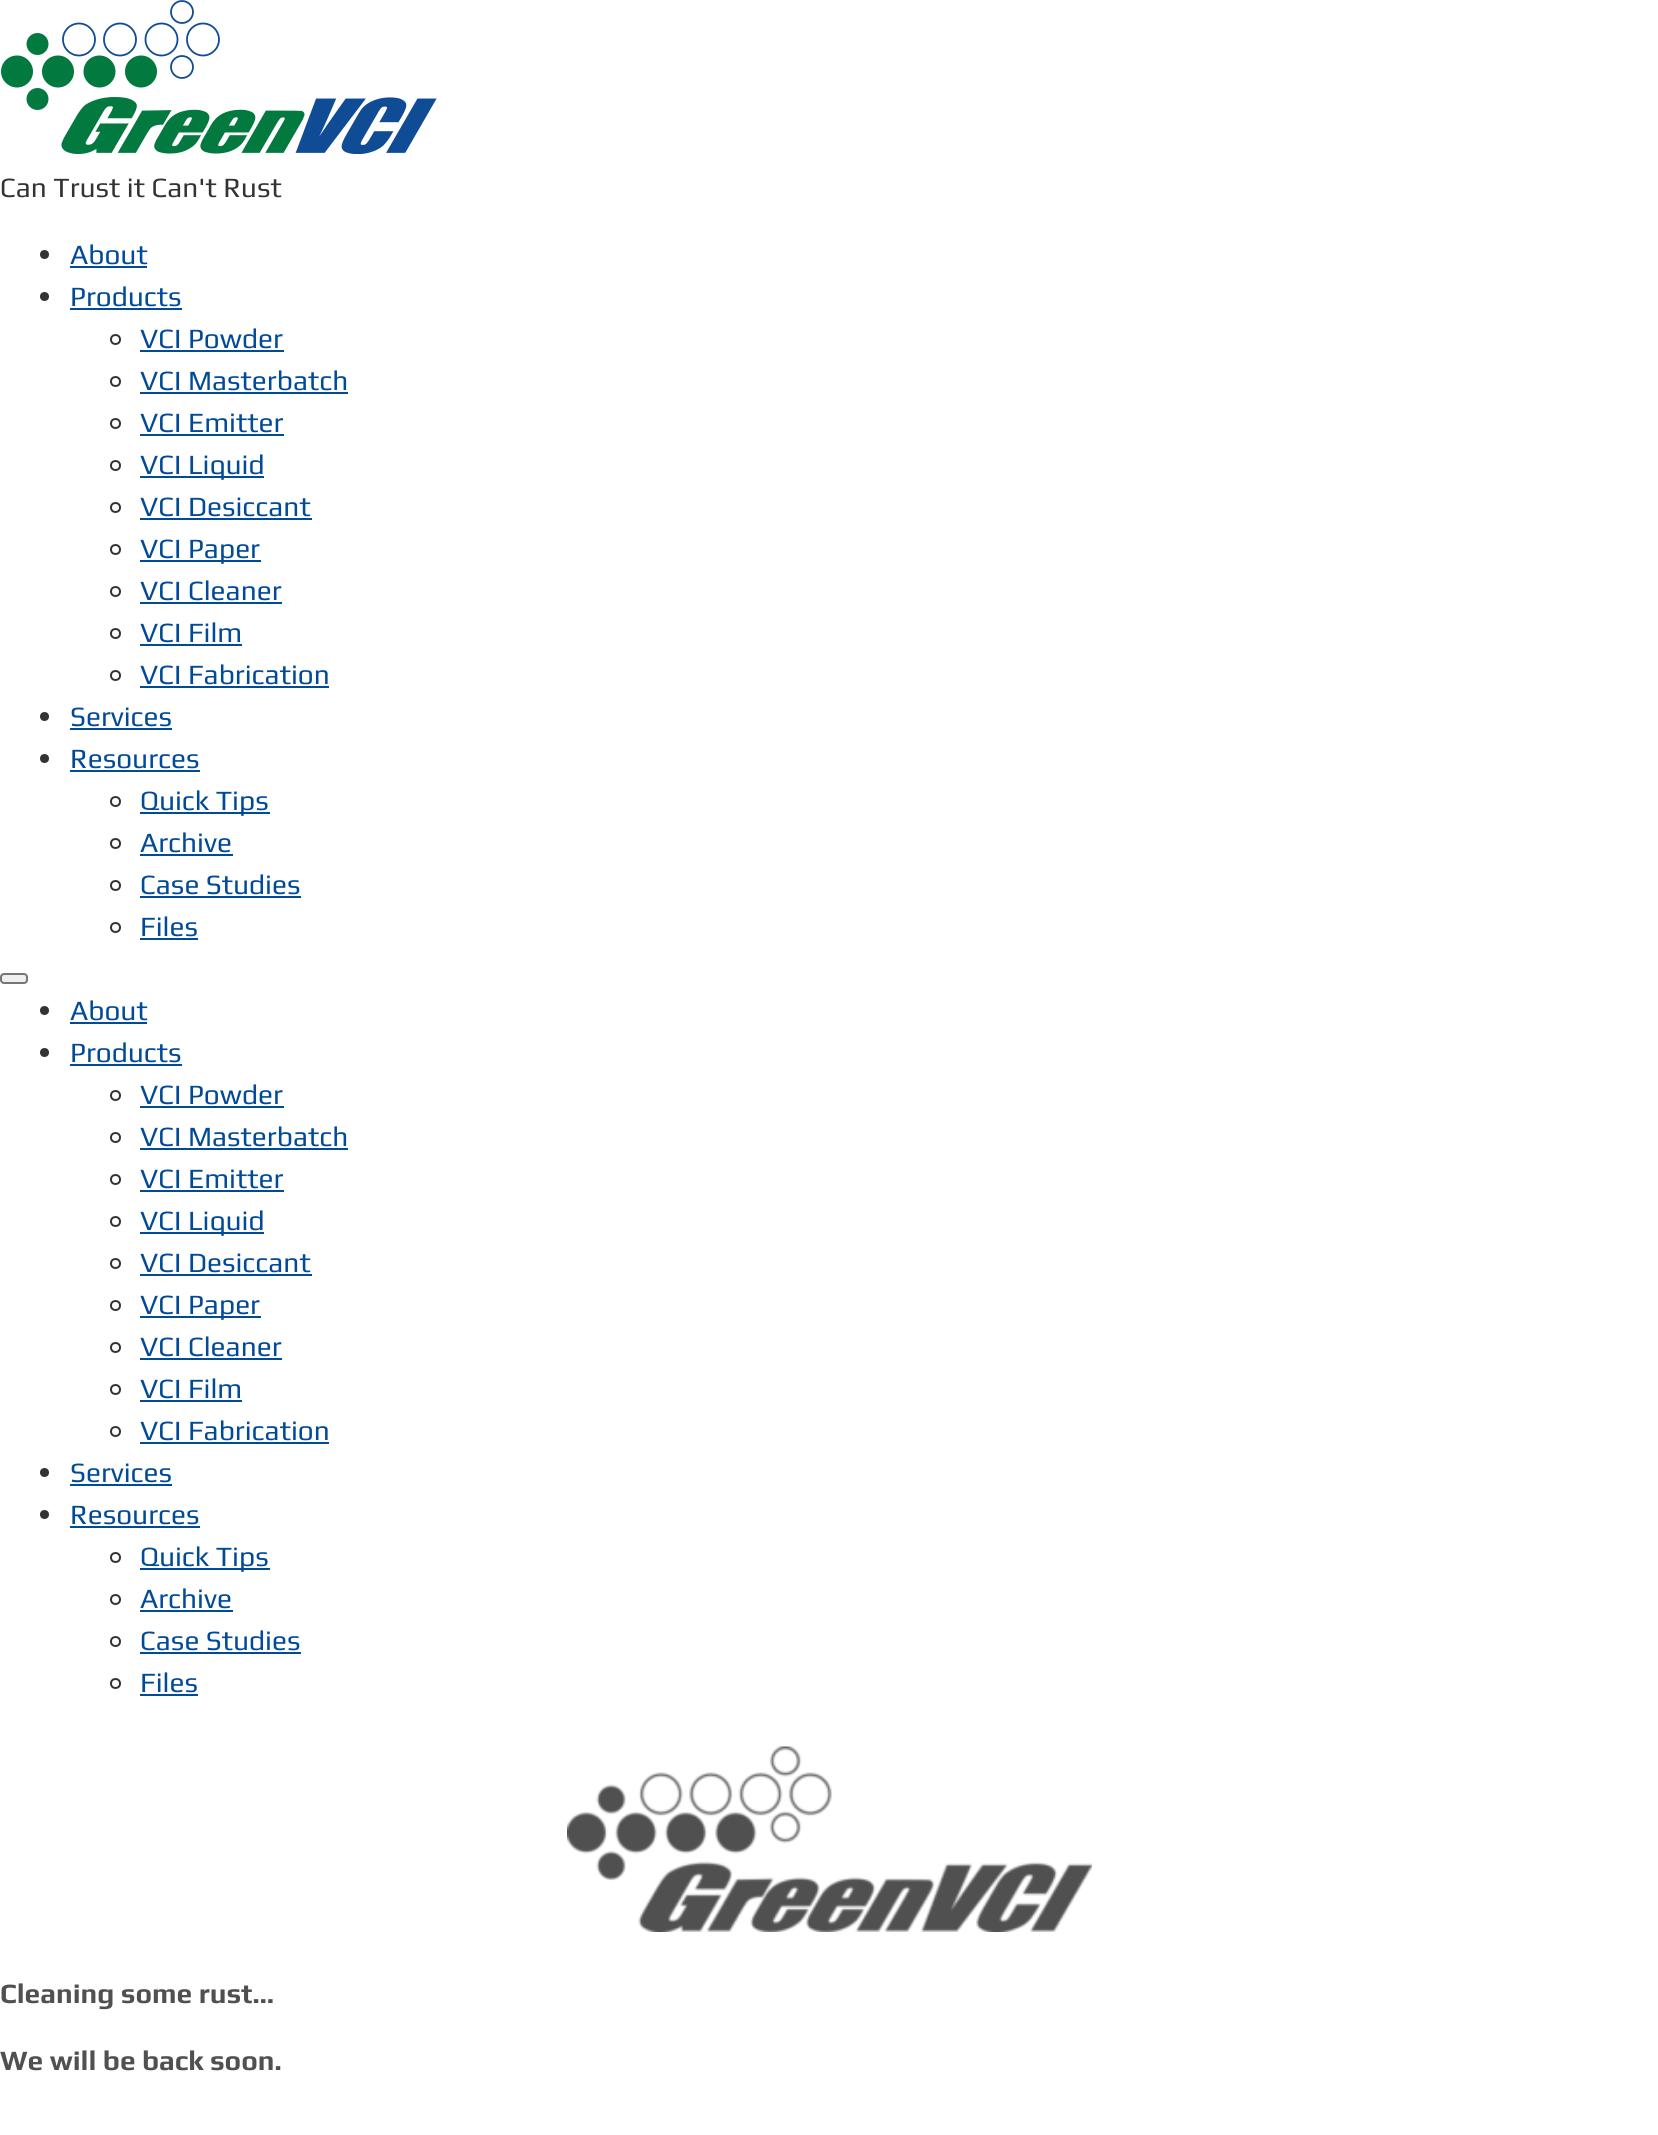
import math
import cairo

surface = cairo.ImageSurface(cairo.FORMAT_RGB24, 1658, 2135)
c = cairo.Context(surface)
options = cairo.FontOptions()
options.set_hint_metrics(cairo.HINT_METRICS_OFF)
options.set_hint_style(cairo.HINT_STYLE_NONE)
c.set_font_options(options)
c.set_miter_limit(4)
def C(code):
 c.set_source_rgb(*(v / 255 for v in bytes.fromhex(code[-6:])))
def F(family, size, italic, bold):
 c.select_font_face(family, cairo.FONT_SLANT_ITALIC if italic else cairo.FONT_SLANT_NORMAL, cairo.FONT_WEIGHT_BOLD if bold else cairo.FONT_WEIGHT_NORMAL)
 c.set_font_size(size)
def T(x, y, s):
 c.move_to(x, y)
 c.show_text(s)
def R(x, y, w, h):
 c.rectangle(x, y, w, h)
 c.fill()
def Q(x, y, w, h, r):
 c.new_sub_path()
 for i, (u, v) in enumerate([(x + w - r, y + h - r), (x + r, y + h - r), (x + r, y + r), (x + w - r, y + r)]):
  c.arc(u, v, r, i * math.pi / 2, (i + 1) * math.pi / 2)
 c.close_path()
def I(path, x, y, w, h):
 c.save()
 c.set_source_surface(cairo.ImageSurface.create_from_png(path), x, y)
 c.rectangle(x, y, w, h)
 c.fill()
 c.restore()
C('ffffff')
c.paint()
I('1.png',1,0,436,154)
F('Play',28,0,0)
C('333333')
T(0,197,'Can Trust it Can\'t Rust')
c.new_path()
c.arc(44.5,254.5,4.5,0,2 * math.pi)
c.fill()
C('004a98')
T(70,264,'About')
R(70,266,77,2)
C('333333')
c.new_path()
c.arc(44.5,296.5,4.5,0,2 * math.pi)
c.fill()
C('004a98')
T(70,306,'Products')
R(70,308,112,2)
c.new_path()
c.arc(115.5,339.5,4.5,0,2 * math.pi)
C('333333')
c.stroke()
C('004a98')
T(140,348,'VCI Powder')
R(140,350,144,2)
c.new_path()
c.arc(115.5,381.5,4.5,0,2 * math.pi)
C('333333')
c.stroke()
C('004a98')
T(140,390,'VCI Masterbatch')
R(140,392,208,2)
c.new_path()
c.arc(115.5,423.5,4.5,0,2 * math.pi)
C('333333')
c.stroke()
C('004a98')
T(140,432,'VCI Emitter')
R(140,434,144,2)
c.new_path()
c.arc(115.5,465.5,4.5,0,2 * math.pi)
C('333333')
c.stroke()
C('004a98')
R(140,476,124,2)
T(140,474,'VCI Liquid')
c.new_path()
c.arc(115.5,507.5,4.5,0,2 * math.pi)
C('333333')
c.stroke()
C('004a98')
T(140,516,'VCI Desiccant')
R(140,518,172,2)
c.new_path()
c.arc(115.5,549.5,4.5,0,2 * math.pi)
C('333333')
c.stroke()
C('004a98')
R(140,560,121,2)
T(140,558,'VCI Paper')
c.new_path()
c.arc(115.5,591.5,4.5,0,2 * math.pi)
C('333333')
c.stroke()
C('004a98')
T(140,600,'VCI Cleaner')
R(140,602,142,2)
c.new_path()
c.arc(115.5,633.5,4.5,0,2 * math.pi)
C('333333')
c.stroke()
C('004a98')
T(140,642,'VCI Film')
R(140,644,102,2)
c.new_path()
c.arc(115.5,675.5,4.5,0,2 * math.pi)
C('333333')
c.stroke()
C('004a98')
T(140,684,'VCI Fabrication')
R(140,686,189,2)
C('333333')
c.new_path()
c.arc(44.5,716.5,4.5,0,2 * math.pi)
c.fill()
C('004a98')
T(70,726,'Services')
R(70,728,102,2)
C('333333')
c.new_path()
c.arc(44.5,758.5,4.5,0,2 * math.pi)
c.fill()
C('004a98')
T(70,768,'Resources')
R(70,770,130,2)
c.new_path()
c.arc(115.5,801.5,4.5,0,2 * math.pi)
C('333333')
c.stroke()
C('004a98')
R(140,812,130,2)
T(140,810,'Quick Tips')
c.new_path()
c.arc(115.5,843.5,4.5,0,2 * math.pi)
C('333333')
c.stroke()
C('004a98')
T(140,852,'Archive')
R(140,854,93,2)
c.new_path()
c.arc(115.5,885.5,4.5,0,2 * math.pi)
C('333333')
c.stroke()
C('004a98')
T(140,894,'Case Studies')
R(140,896,161,2)
c.new_path()
c.arc(115.5,927.5,4.5,0,2 * math.pi)
C('333333')
c.stroke()
C('004a98')
T(140,936,'Files')
R(140,938,58,2)
C('efefef')
Q(1,974,26,9,3)
c.fill_preserve()
C('767676')
c.stroke()
C('333333')
c.arc(44.5,1010.5,4.5,0,2 * math.pi)
c.fill()
C('004a98')
T(70,1020,'About')
R(70,1022,77,2)
C('333333')
c.new_path()
c.arc(44.5,1052.5,4.5,0,2 * math.pi)
c.fill()
C('004a98')
T(70,1062,'Products')
R(70,1064,112,2)
c.new_path()
c.arc(115.5,1095.5,4.5,0,2 * math.pi)
C('333333')
c.stroke()
C('004a98')
T(140,1104,'VCI Powder')
R(140,1106,144,2)
c.new_path()
c.arc(115.5,1137.5,4.5,0,2 * math.pi)
C('333333')
c.stroke()
C('004a98')
T(140,1146,'VCI Masterbatch')
R(140,1148,208,2)
c.new_path()
c.arc(115.5,1179.5,4.5,0,2 * math.pi)
C('333333')
c.stroke()
C('004a98')
T(140,1188,'VCI Emitter')
R(140,1190,144,2)
c.new_path()
c.arc(115.5,1221.5,4.5,0,2 * math.pi)
C('333333')
c.stroke()
C('004a98')
R(140,1232,124,2)
T(140,1230,'VCI Liquid')
c.new_path()
c.arc(115.5,1263.5,4.5,0,2 * math.pi)
C('333333')
c.stroke()
C('004a98')
T(140,1272,'VCI Desiccant')
R(140,1274,172,2)
c.new_path()
c.arc(115.5,1305.5,4.5,0,2 * math.pi)
C('333333')
c.stroke()
C('004a98')
R(140,1316,121,2)
T(140,1314,'VCI Paper')
c.new_path()
c.arc(115.5,1347.5,4.5,0,2 * math.pi)
C('333333')
c.stroke()
C('004a98')
T(140,1356,'VCI Cleaner')
R(140,1358,142,2)
c.new_path()
c.arc(115.5,1389.5,4.5,0,2 * math.pi)
C('333333')
c.stroke()
C('004a98')
T(140,1398,'VCI Film')
R(140,1400,102,2)
c.new_path()
c.arc(115.5,1431.5,4.5,0,2 * math.pi)
C('333333')
c.stroke()
C('004a98')
T(140,1440,'VCI Fabrication')
R(140,1442,189,2)
C('333333')
c.new_path()
c.arc(44.5,1472.5,4.5,0,2 * math.pi)
c.fill()
C('004a98')
T(70,1482,'Services')
R(70,1484,102,2)
C('333333')
c.new_path()
c.arc(44.5,1514.5,4.5,0,2 * math.pi)
c.fill()
C('004a98')
T(70,1524,'Resources')
R(70,1526,130,2)
c.new_path()
c.arc(115.5,1557.5,4.5,0,2 * math.pi)
C('333333')
c.stroke()
C('004a98')
R(140,1568,130,2)
T(140,1566,'Quick Tips')
c.new_path()
c.arc(115.5,1599.5,4.5,0,2 * math.pi)
C('333333')
c.stroke()
C('004a98')
T(140,1608,'Archive')
R(140,1610,93,2)
c.new_path()
c.arc(115.5,1641.5,4.5,0,2 * math.pi)
C('333333')
c.stroke()
C('004a98')
T(140,1650,'Case Studies')
R(140,1652,161,2)
c.new_path()
c.arc(115.5,1683.5,4.5,0,2 * math.pi)
C('333333')
c.stroke()
C('004a98')
T(140,1692,'Files')
R(140,1694,58,2)
I('2.png',567,1746,525,186)
F('Play',28,0,1)
C('505050')
T(0,2003,'Cleaning some rust…')
T(0,2070,'We will be back soon.')
surface.write_to_png('o.png')
